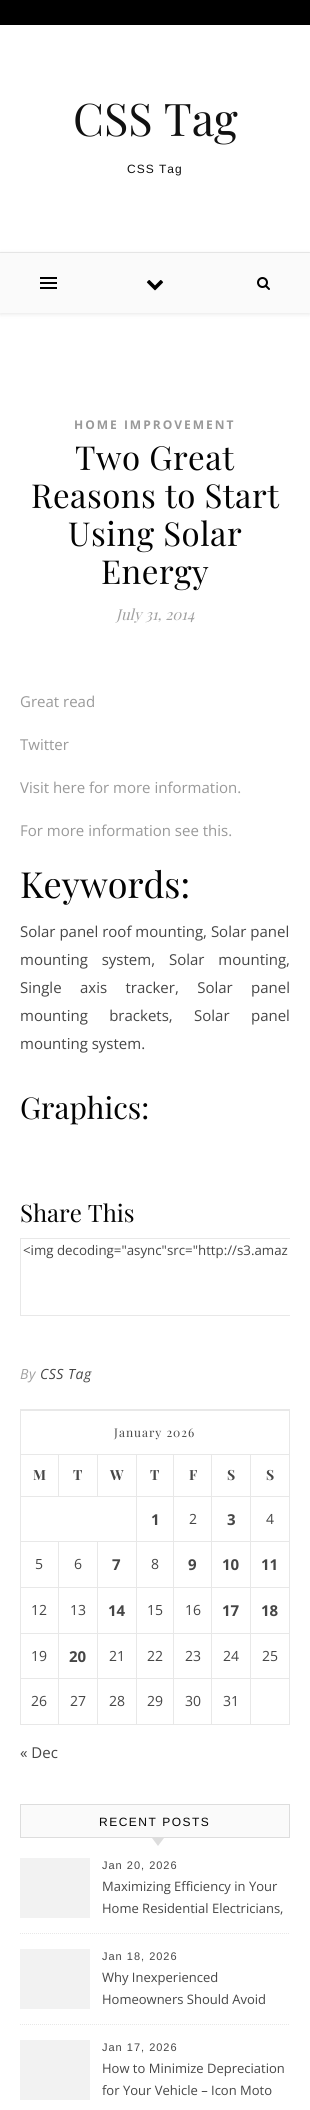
import math
import cairo

surface = cairo.ImageSurface(cairo.FORMAT_RGB24, 310, 2110)
c = cairo.Context(surface)
options = cairo.FontOptions()
options.set_hint_metrics(cairo.HINT_METRICS_OFF)
options.set_hint_style(cairo.HINT_STYLE_NONE)
c.set_font_options(options)
c.set_miter_limit(4)
def C(code):
 c.set_source_rgb(*(v / 255 for v in bytes.fromhex(code[-6:])))
def F(family, size, italic, bold):
 c.select_font_face(family, cairo.FONT_SLANT_ITALIC if italic else cairo.FONT_SLANT_NORMAL, cairo.FONT_WEIGHT_BOLD if bold else cairo.FONT_WEIGHT_NORMAL)
 c.set_font_size(size)
def T(x, y, s):
 c.move_to(x, y)
 c.show_text(s)
def L(x, y, s, letter, word):
 c.move_to(x, y)
 for ch in s:
  c.show_text(ch)
  c.rel_move_to(letter + word * (ch == ' '), 0)
def R(x, y, w, h):
 c.rectangle(x, y, w, h)
 c.fill()
def Q(x, y, w, h, r):
 c.new_sub_path()
 for i, (u, v) in enumerate([(x + w - r, y + h - r), (x + r, y + h - r), (x + r, y + r), (x + w - r, y + r)]):
  c.arc(u, v, r, i * math.pi / 2, (i + 1) * math.pi / 2)
 c.close_path()
def S(x, y, w, h, r, blur, alpha):
 c.push_group_with_content(cairo.CONTENT_ALPHA)
 c.set_operator(cairo.OPERATOR_SOURCE)
 for i in range(15, -16, -2):
  e = blur * i / 6
  if min(w, h) + 2 * e > 0:
   c.set_source_rgba(0, 0, 0, alpha * math.erfc((i - 1) / 8.5) / 2)
   Q(x - e, y - e, w + 2 * e, h + 2 * e, max(0, min(r + e + blur * .6, min(w, h) / 2 + e)))
   c.fill()
 c.mask(c.pop_group())
def I(path, x, y, w, h):
 c.save()
 c.set_source_surface(cairo.ImageSurface.create_from_png(path), x, y)
 c.rectangle(x, y, w, h)
 c.fill()
 c.restore()
C('ffffff')
c.paint()
C('000000')
R(0,0,310,25)
C('ebebeb')
R(0,252,310,1)
F('Playfair Display',45,0,0)
C('111111')
T(73,136,'CSS Tag')
F('Liberation Sans',12,0,0)
L(127,173,'CSS Tag',1,0)
C('000000')
S(0,254,310,60,0,2.5,.1)
C('fafafa')
R(0,253,310,60)
C('000000')
R(40,277,17,2)
R(40,282,17,2)
R(40,287,17,2)
I('1.png',146,280,18,11)
I('2.png',257,277,13,13)
F('Open Sans',12,0,1)
C('999999')
L(74,429,'HOME IMPROVEMENT',2,0)
F('Playfair Display',33,0,0)
C('030303')
L(75,470,'Two Great',.5,0)
L(31,508,'Reasons to Start',.5,0)
L(68,546,'Using Solar',.5,0)
L(101,584,'Energy',.5,0)
F('Playfair Display',15,1,0)
C('a1a1a1')
T(116,620,'July 31, 2014')
F('Open Sans',15,0,0)
C('999999')
T(20,707,'Great read')
T(20,750,'Twitter')
T(20,793,'Visit here for more information.')
T(20,836,'For more information see this.')
F('Playfair Display',36,0,0)
C('030303')
T(20,898,'Keywords:')
F('Open Sans',15,0,0)
C('464646')
T(20,937,'Solar panel roof mounting, Solar panel')
L(20,965,'mounting system, Solar mounting,',0,10)
L(20,993,'Single axis tracker, Solar panel',0,14.5)
L(20,1021,'mounting brackets, Solar panel',0,17.5)
T(20,1049,'mounting system.')
F('Playfair Display',30,0,0)
C('030303')
T(20,1119,'Graphics:')
F('Playfair Display',24,0,0)
T(20,1222,'Share This')
c.save()
c.rectangle(20,647,270,692)
c.clip()
c.rectangle(20.5,1238.5,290,77)
C('e8e8e8')
c.set_line_width(1)
c.stroke()
c.restore()
F('Open Sans',13.3,0,0)
C('464646')
T(23,1255,'<img decoding="async"src="http://s3.amaz')
F('Open Sans',14,1,0)
C('a1a1a1')
L(20,1379,'By',.5,0)
C('464646')
L(40,1379,'CSS Tag',.5,0)
C('e8e8e8')
R(20,1409,270,2)
R(289,1410,1,315)
R(20,1724,270,1)
R(20,1410,1,315)
F('Playfair Display',12,0,0)
C('464646')
L(114,1437,'January 2026',1,0)
C('e8e8e8')
R(20,1454,270,1)
F('Playfair Display',14,0,1)
C('464646')
T(33,1480,'M')
C('e8e8e8')
R(20,1496,270,1)
R(58,1454,1,43)
C('464646')
T(73,1480,'T')
C('e8e8e8')
R(97,1454,1,43)
C('464646')
T(110,1480,'W')
T(150,1480,'T')
T(189,1480,'F')
T(227,1480,'S')
T(266,1480,'S')
F('Open Sans',15,0,1)
T(151,1525,'1')
F('Open Sans',14,0,0)
T(189,1524,'2')
F('Open Sans',15,0,1)
T(227,1525,'3')
F('Open Sans',14,0,0)
T(266,1524,'4')
C('e8e8e8')
R(20,1541,270,1)
C('464646')
T(35,1569,'5')
T(74,1569,'6')
F('Open Sans',15,0,1)
T(112,1570,'7')
F('Open Sans',14,0,0)
T(151,1569,'8')
F('Open Sans',15,0,1)
T(188,1570,'9')
T(222,1570,'10')
T(261,1570,'11')
C('e8e8e8')
R(20,1587,270,1)
F('Open Sans',14,0,0)
C('464646')
T(31,1615,'12')
T(70,1615,'13')
F('Open Sans',15,0,1)
T(108,1616,'14')
F('Open Sans',14,0,0)
T(147,1615,'15')
T(185,1615,'16')
F('Open Sans',15,0,1)
T(222,1616,'17')
T(261,1616,'18')
C('e8e8e8')
R(20,1633,270,1)
F('Open Sans',14,0,0)
C('464646')
T(31,1661,'19')
F('Open Sans',15,0,1)
T(69,1662,'20')
F('Open Sans',14,0,0)
T(109,1661,'21')
T(147,1661,'22')
T(185,1661,'23')
T(223,1661,'24')
T(262,1661,'25')
C('e8e8e8')
R(20,1678,270,1)
C('464646')
T(31,1706,'26')
C('e8e8e8')
R(58,1541,1,184)
C('464646')
T(70,1706,'27')
C('e8e8e8')
R(97,1541,1,184)
C('464646')
T(109,1706,'28')
C('e8e8e8')
R(136,1454,1,271)
C('464646')
T(147,1706,'29')
C('e8e8e8')
R(173,1454,1,271)
C('464646')
T(185,1706,'30')
C('e8e8e8')
R(211,1454,1,271)
C('464646')
T(223,1706,'31')
C('e8e8e8')
R(250,1454,1,271)
F('Open Sans',15,0,0)
C('464646')
T(20,1758,'« Dec')
C('fafafa')
c.rectangle(20.5,1804.5,269,33)
c.fill_preserve()
C('dddddd')
c.set_line_width(1)
c.stroke()
F('Liberation Sans',12,0,0)
C('030303')
L(99,1826,'RECENT POSTS',1.5,0)
C('dddddd')
c.new_path()
c.move_to(152,1838)
c.line_to(164,1838)
c.line_to(158,1846)
c.close_path()
c.fill()
c.new_path()
c.move_to(20,1933.5)
c.line_to(290,1933.5)
C('e8e8e8')
c.set_dash([1,1])
c.stroke()
C('f2f2f2')
R(20,1858,70,60)
F('Liberation Sans',11,0,0)
C('464646')
L(102,1869,'Jan 20, 2026',1,0)
F('Open Sans',13,0,0)
T(102,1891,'Maximizing Efficiency in Your')
T(102,1913,'Home Residential Electricians,')
c.new_path()
c.move_to(20,2024.5)
c.line_to(290,2024.5)
C('e8e8e8')
c.stroke()
C('f2f2f2')
R(20,1949,70,60)
F('Liberation Sans',11,0,0)
C('464646')
L(102,1960,'Jan 18, 2026',1,0)
F('Open Sans',13,0,0)
T(102,1982,'Why Inexperienced')
T(102,2004,'Homeowners Should Avoid')
C('f2f2f2')
R(20,2040,70,60)
F('Liberation Sans',11,0,0)
C('464646')
L(102,2051,'Jan 17, 2026',1,0)
F('Open Sans',13,0,0)
T(102,2073,'How to Minimize Depreciation')
T(102,2095,'for Your Vehicle – Icon Moto')
surface.write_to_png('o.png')
